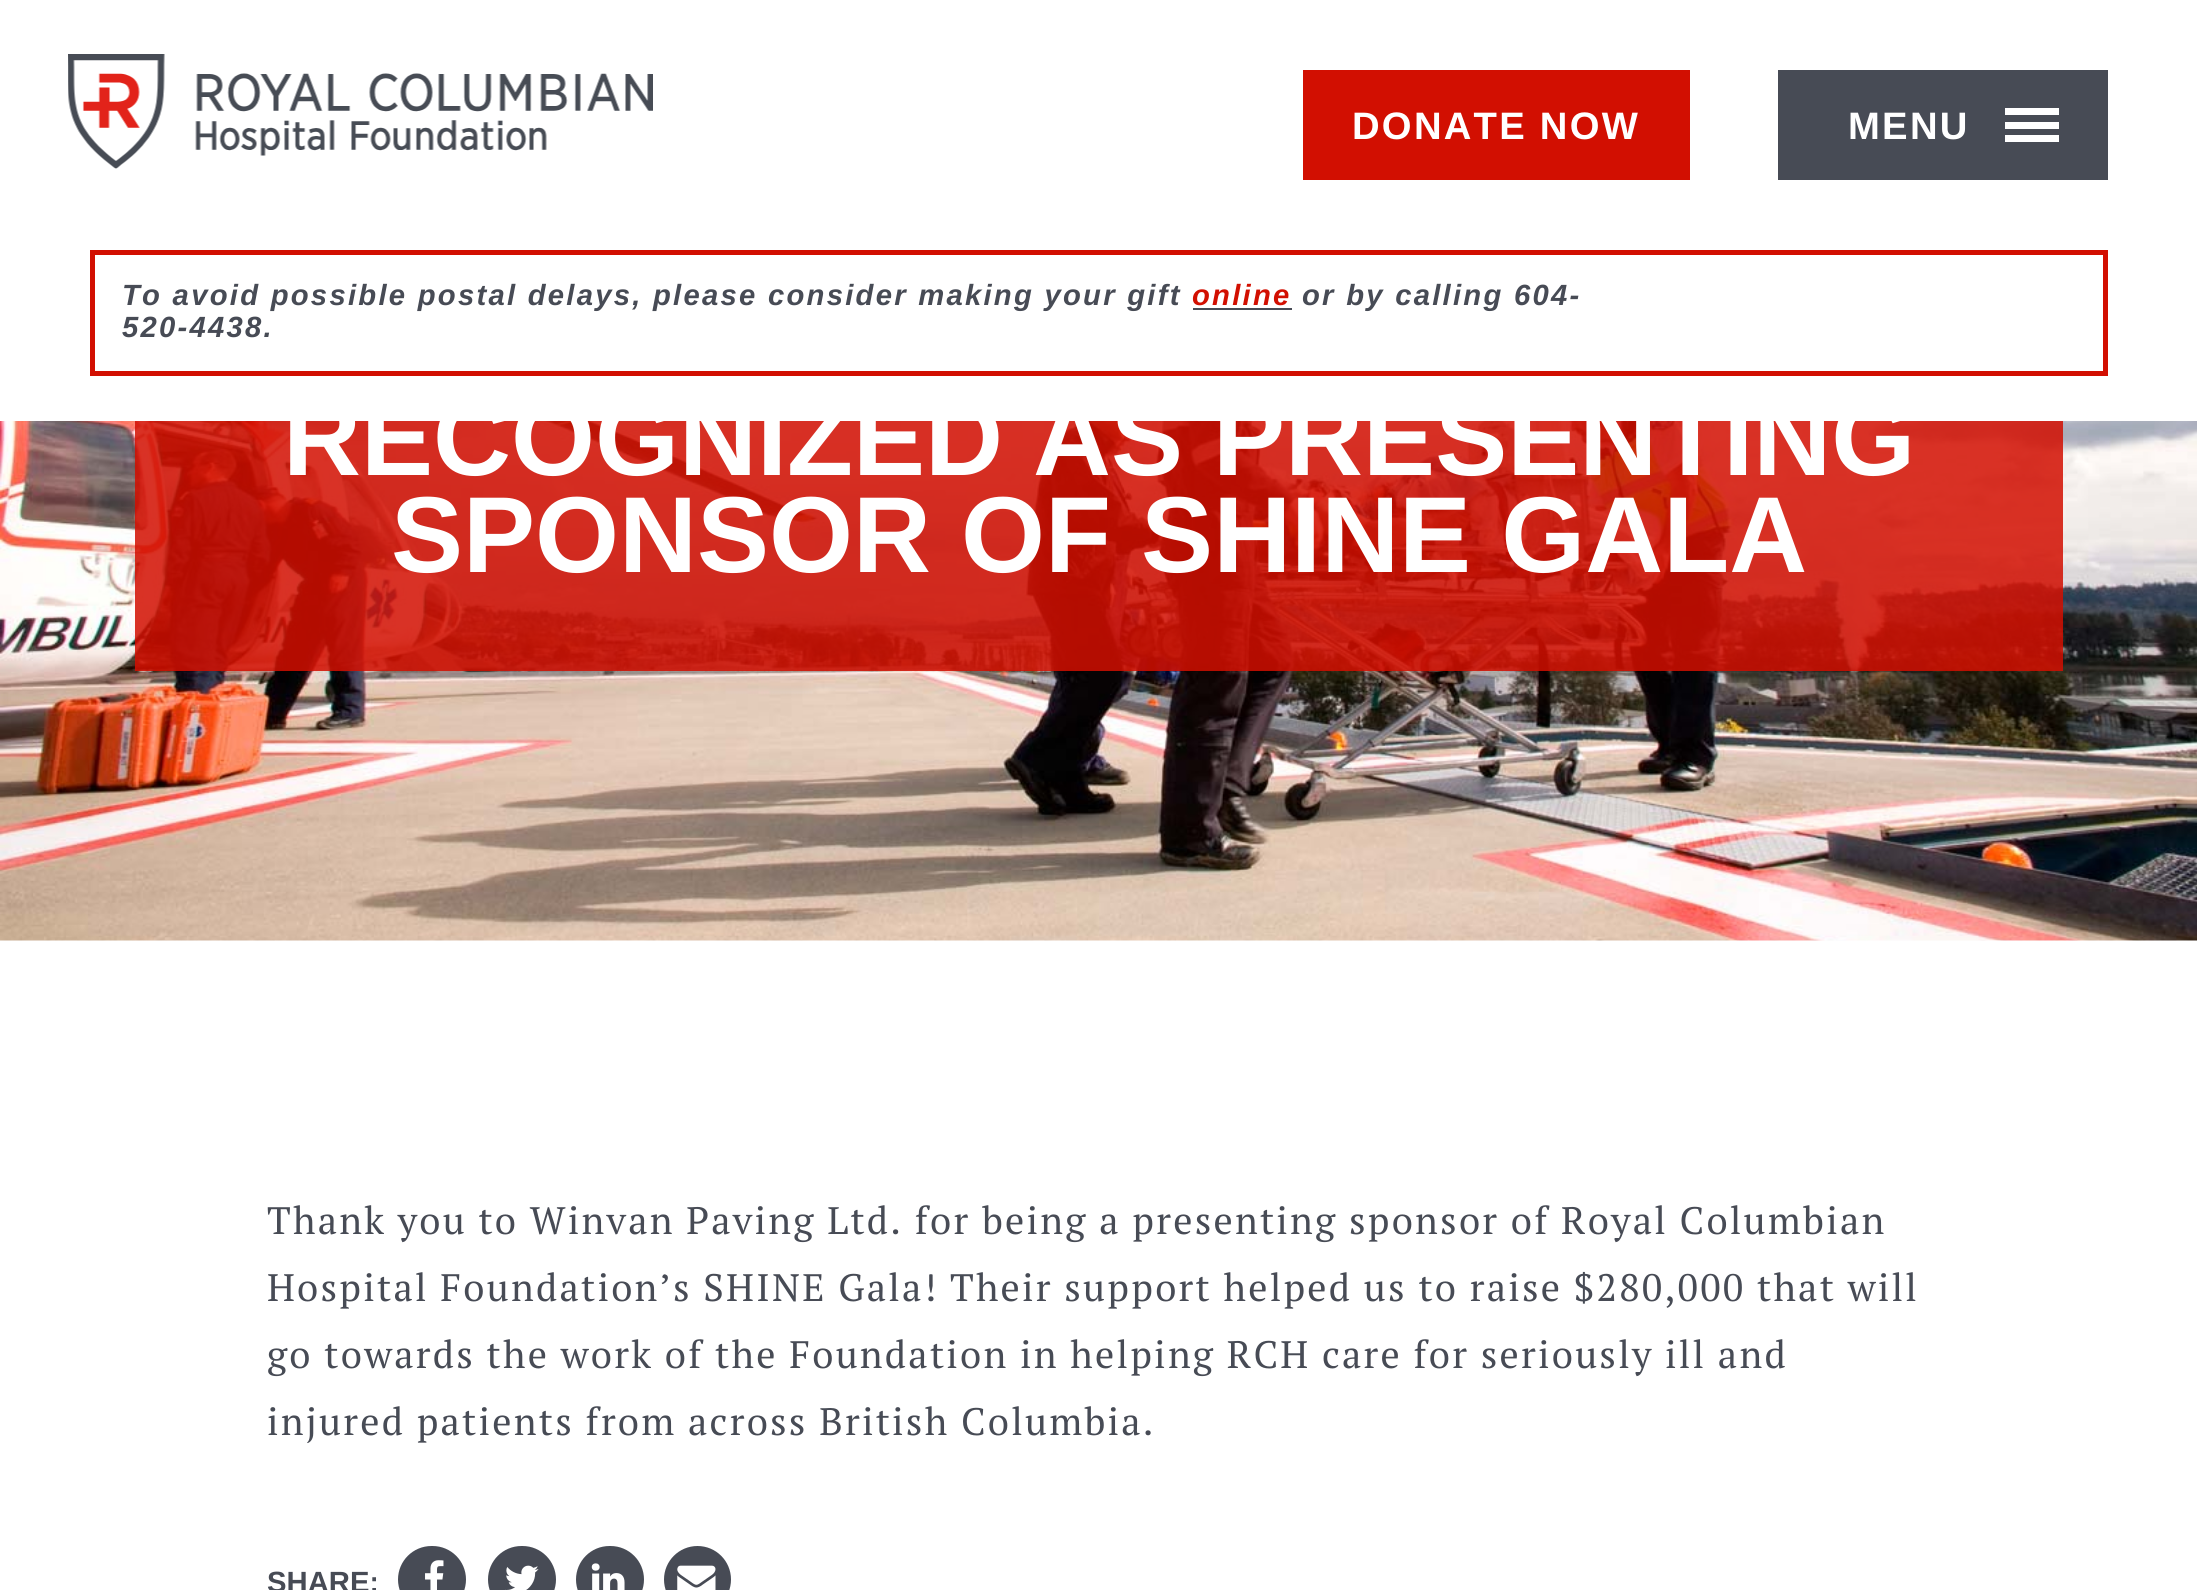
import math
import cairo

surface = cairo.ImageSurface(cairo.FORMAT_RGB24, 2197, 1590)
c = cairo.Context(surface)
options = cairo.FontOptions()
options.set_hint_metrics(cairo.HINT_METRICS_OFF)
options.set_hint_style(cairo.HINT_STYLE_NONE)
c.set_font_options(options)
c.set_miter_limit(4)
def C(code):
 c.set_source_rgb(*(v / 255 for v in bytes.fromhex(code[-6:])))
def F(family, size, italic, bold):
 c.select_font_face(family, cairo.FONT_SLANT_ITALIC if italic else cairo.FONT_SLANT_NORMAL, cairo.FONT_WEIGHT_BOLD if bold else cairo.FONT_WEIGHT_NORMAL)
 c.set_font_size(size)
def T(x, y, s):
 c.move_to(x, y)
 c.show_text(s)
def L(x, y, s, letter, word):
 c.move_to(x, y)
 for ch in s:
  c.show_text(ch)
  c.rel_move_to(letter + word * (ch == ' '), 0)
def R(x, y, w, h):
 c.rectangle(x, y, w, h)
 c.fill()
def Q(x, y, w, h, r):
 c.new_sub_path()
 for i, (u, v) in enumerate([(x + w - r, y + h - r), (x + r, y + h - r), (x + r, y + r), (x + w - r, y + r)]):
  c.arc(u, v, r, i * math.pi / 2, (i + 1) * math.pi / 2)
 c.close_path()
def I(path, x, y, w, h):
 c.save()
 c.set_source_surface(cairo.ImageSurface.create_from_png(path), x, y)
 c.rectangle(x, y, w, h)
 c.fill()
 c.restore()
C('ffffff')
c.paint()
I('1.png',68,54,585,115)
C('d20f01')
R(1303,70,387,110)
F('Liberation Sans',38.25,0,1)
C('ffffff')
L(1352,139,'DONATE NOW',2.25,0)
C('474b55')
R(1778,70,330,110)
C('ffffff')
L(1848,139,'MENU',2.25,0)
R(2005,108,54,7)
R(2005,122,54,7)
R(2005,135,54,7)
c.rectangle(92.5,252.5,2013,121)
C('d20f01')
c.set_line_width(5)
c.stroke()
F('Liberation Sans',29.25,1,1)
C('474b55')
L(122,305,'To avoid possible postal delays, please consider making your gift',2.25,0)
C('d20f01')
L(1192,305,'online',2.25,0)
C('474b55')
R(1193,308,99,2)
L(1302,305,'or by calling 604-',2.25,0)
L(122,337,'520-4438.',2.25,0)
I('2.png',0,421,2197,520)
c.set_source_rgba(0.824,0.059,0.004,0.85)
R(135,421,1928,250)
F('Liberation Sans',108,0,1)
C('ffffff')
T(283,475,'RECOGNIZED AS PRESENTING')
T(391,572,'SPONSOR OF SHINE GALA')
F('PT Serif',38.25,0,0)
C('474b55')
L(267,1234,'Thank you to Winvan Paving Ltd. for being a presenting sponsor of Royal Columbian',2.25,0)
L(267,1301,'Hospital Foundation’s SHINE Gala! Their support helped us to raise $280,000 that will',2.25,0)
L(267,1368,'go towards the work of the Foundation in helping RCH care for seriously ill and',2.25,0)
L(267,1435,'injured patients from across British Columbia.',2.25,0)
F('Liberation Sans',29.25,0,1)
T(267,1592,'SHARE:')
Q(398,1546,68,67,33.5)
c.fill()
I('3.png',425,1560,19,30)
Q(488,1546,68,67,33.5)
c.fill()
I('4.png',505,1565,34,25)
Q(576,1546,68,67,33.5)
c.fill()
I('5.png',591,1563,34,27)
c.arc(697.5,1579.5,33.5,0,2 * math.pi)
c.fill()
I('6.png',677,1565,39,25)
surface.write_to_png('o.png')
